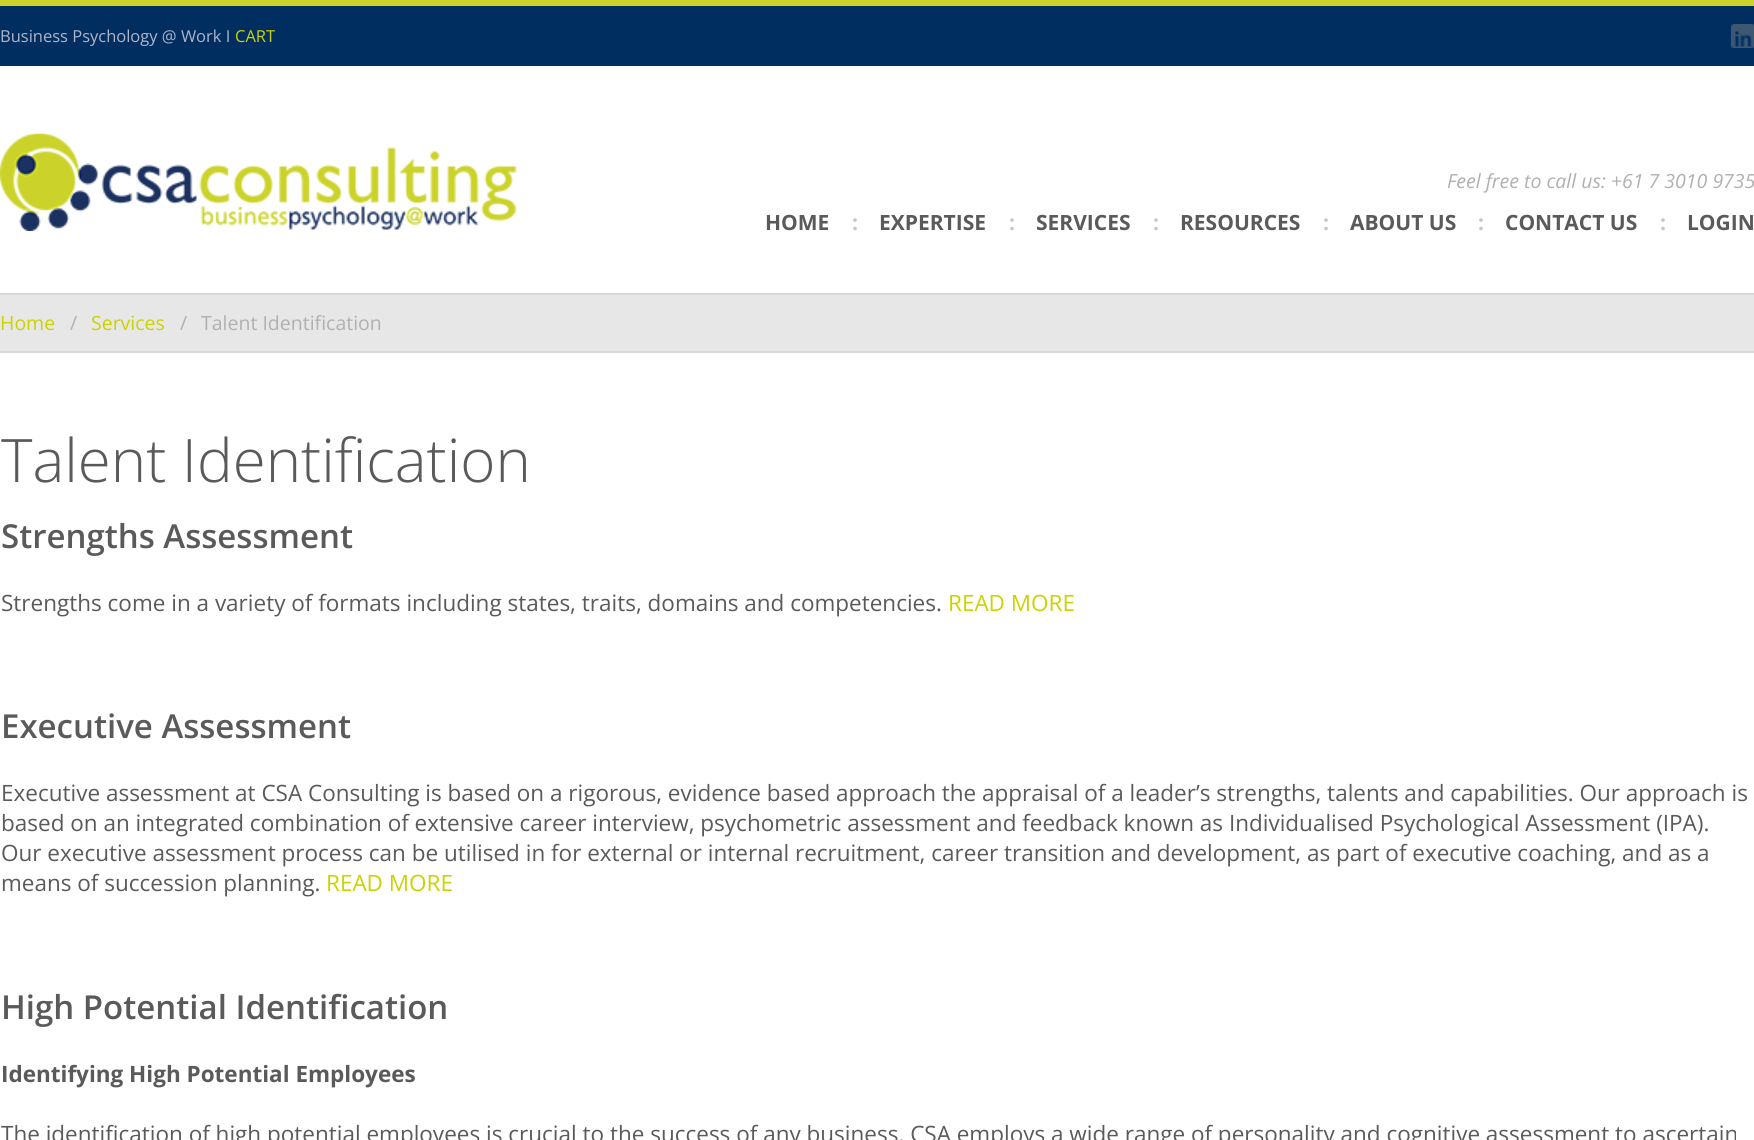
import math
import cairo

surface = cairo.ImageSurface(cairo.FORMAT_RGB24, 1754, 1140)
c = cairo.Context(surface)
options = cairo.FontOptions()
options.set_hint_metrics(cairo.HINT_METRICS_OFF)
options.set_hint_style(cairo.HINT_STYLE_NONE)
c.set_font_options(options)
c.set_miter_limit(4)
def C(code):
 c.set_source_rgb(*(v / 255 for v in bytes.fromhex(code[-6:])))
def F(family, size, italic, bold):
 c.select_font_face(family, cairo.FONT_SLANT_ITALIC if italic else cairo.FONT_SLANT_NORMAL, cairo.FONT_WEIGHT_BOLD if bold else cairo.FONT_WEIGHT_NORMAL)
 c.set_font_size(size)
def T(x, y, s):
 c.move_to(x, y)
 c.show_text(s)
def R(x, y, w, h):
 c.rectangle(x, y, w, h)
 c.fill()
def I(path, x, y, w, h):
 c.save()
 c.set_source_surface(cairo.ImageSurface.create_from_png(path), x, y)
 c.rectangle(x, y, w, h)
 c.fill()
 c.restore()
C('ffffff')
c.paint()
C('002e60')
R(0,6,1754,60)
C('cbd32b')
R(0,0,1754,6)
F('Open Sans',16.5,0,0)
C('b0b4c7')
T(0,42,'Business Psychology @ Work I')
C('ccd200')
T(235,42,'CART')
I('1.png',1731,24,23,24)
I('2.png',0,133,517,98)
F('Open Sans',19.5,1,0)
C('b0b0b0')
T(1447,188,'Feel free to call us: +61 7 3010 9735')
F('Open Sans',21,0,1)
C('5a5a5a')
T(765,230,'HOME')
C('c5c5c5')
T(852,230,':')
C('5a5a5a')
T(879,230,'EXPERTISE')
C('c5c5c5')
T(1009,230,':')
C('5a5a5a')
T(1036,230,'SERVICES')
C('c5c5c5')
T(1153,230,':')
C('5a5a5a')
T(1180,230,'RESOURCES')
C('c5c5c5')
T(1323,230,':')
C('5a5a5a')
T(1350,230,'ABOUT US')
C('c5c5c5')
T(1478,230,':')
C('5a5a5a')
T(1505,230,'CONTACT US')
C('c5c5c5')
T(1660,230,':')
C('5a5a5a')
T(1687,230,'LOGIN')
C('e7e7e7')
R(0,295,1754,56)
C('d9d9d9')
R(0,293,1754,2)
R(0,351,1754,2)
F('Open Sans',19.5,0,0)
C('ccd200')
T(0,330,'Home')
C('b0b0b0')
T(70,330,'/')
C('ccd200')
T(91,330,'Services')
C('b0b0b0')
T(180,330,'/')
T(201,330,'Talent Identification')
F('Open Sans Light',60,0,0)
C('5a5a5a')
T(1,482,'Talent Identification')
F('Open Sans SemiBold',33,0,0)
T(1,548,'Strengths Assessment')
F('Open Sans',22.5,0,0)
T(1,611,'Strengths come in a variety of formats including states, traits, domains and competencies.')
C('ccd200')
T(948,611,'READ MORE')
F('Open Sans SemiBold',33,0,0)
C('5a5a5a')
T(1,738,'Executive Assessment')
F('Open Sans',22.5,0,0)
T(1,801,'Executive assessment at CSA Consulting is based on a rigorous, evidence based approach the appraisal of a leader’s strengths, talents and capabilities. Our approach is')
T(1,831,'based on an integrated combination of extensive career interview, psychometric assessment and feedback known as Individualised Psychological Assessment (IPA).')
T(1,861,'Our executive assessment process can be utilised in for external or internal recruitment, career transition and development, as part of executive coaching, and as a')
T(1,891,'means of succession planning.')
C('ccd200')
T(326,891,'READ MORE')
F('Open Sans SemiBold',33,0,0)
C('5a5a5a')
T(1,1019,'High Potential Identification')
F('Open Sans',22.5,0,1)
T(1,1082,'Identifying High Potential Employees')
F('Open Sans',22.5,0,0)
T(1,1142,'The identification of high potential employees is crucial to the success of any business. CSA employs a wide range of personality and cognitive assessment to ascertain')
surface.write_to_png('o.png')
